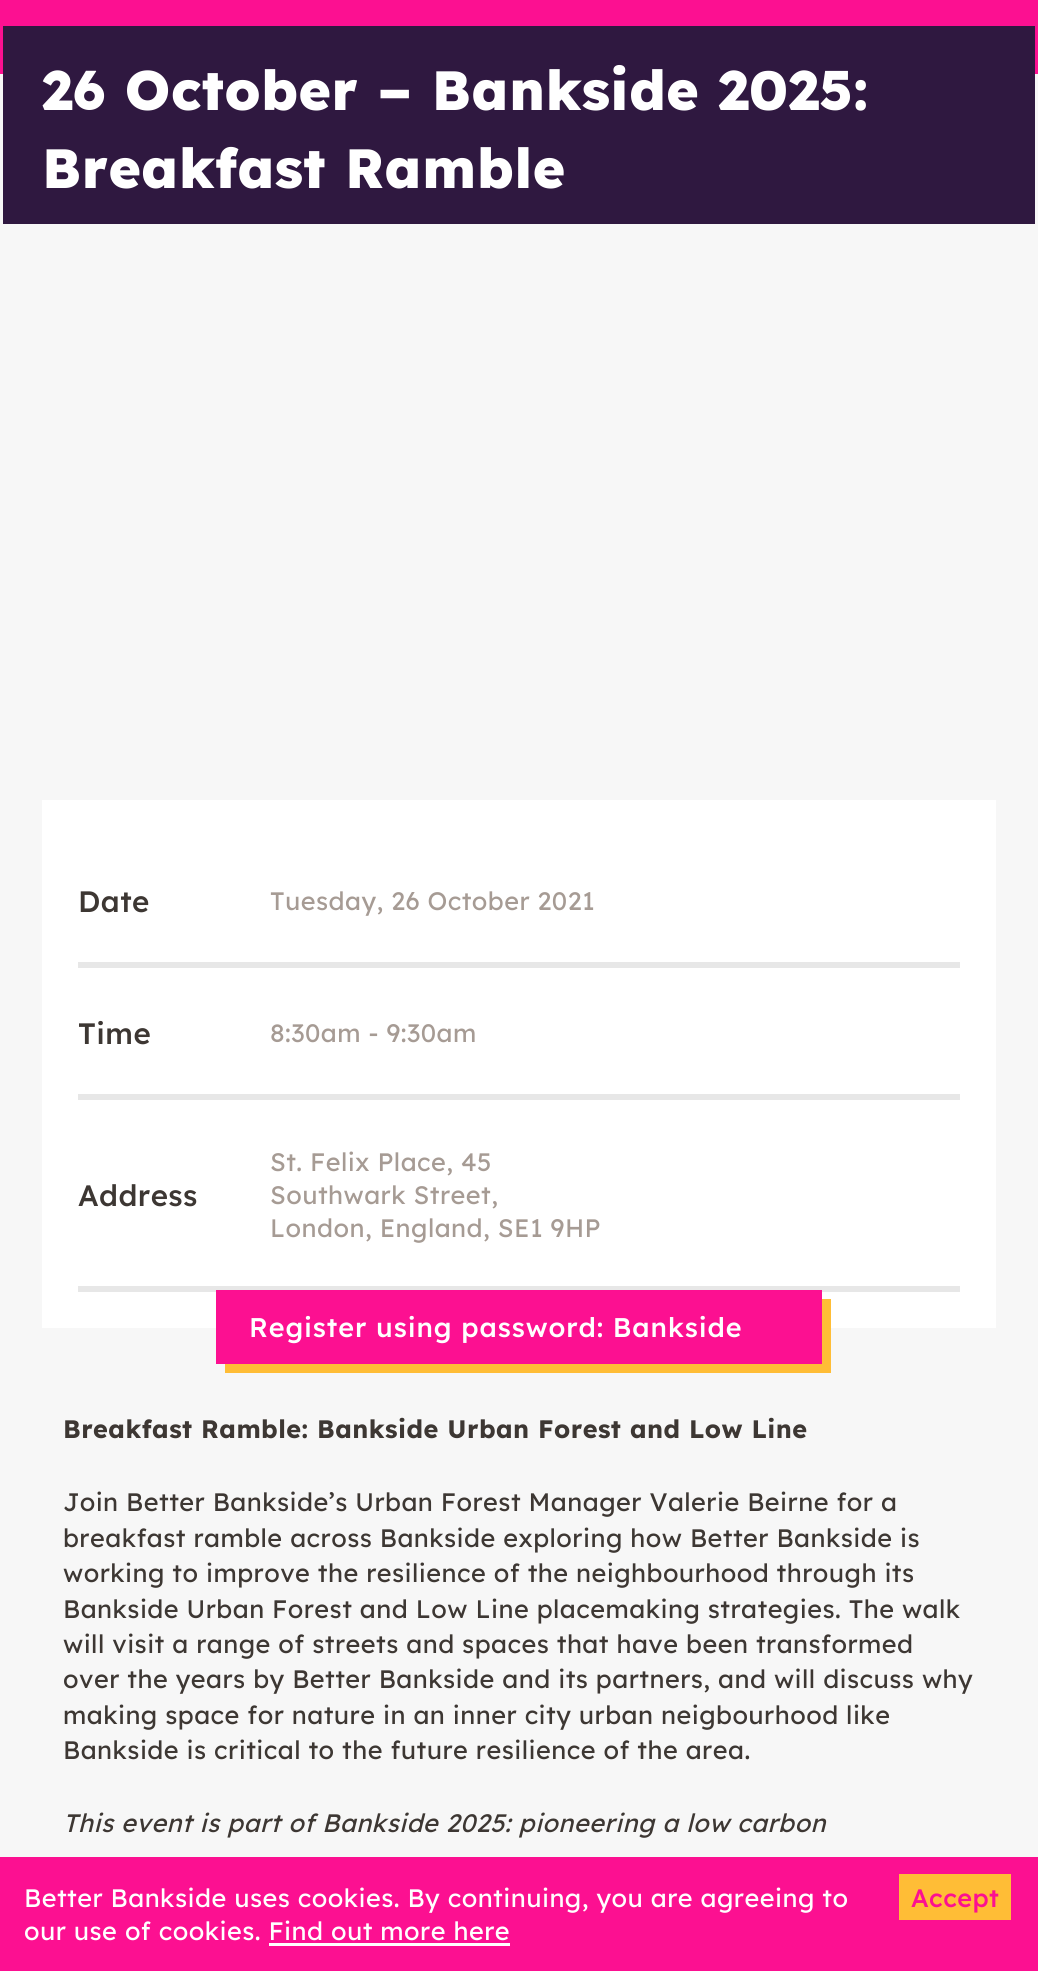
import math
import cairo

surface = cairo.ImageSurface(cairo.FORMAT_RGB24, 1038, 1971)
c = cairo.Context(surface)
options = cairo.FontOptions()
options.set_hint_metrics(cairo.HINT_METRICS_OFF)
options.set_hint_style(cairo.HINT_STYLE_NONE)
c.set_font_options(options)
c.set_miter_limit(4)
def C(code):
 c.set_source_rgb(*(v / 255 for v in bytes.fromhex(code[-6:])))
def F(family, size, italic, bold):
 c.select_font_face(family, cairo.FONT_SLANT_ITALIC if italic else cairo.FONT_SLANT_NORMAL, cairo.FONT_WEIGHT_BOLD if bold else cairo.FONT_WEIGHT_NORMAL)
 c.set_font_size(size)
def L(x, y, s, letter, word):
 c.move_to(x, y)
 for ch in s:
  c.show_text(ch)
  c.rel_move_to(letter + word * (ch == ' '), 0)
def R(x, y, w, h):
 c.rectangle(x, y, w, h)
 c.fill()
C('f7f7f7')
c.paint()
C('fc1091')
R(0,0,1038,74)
C('2f1840')
R(3,26,1032,198)
F('Lexend Deca ExtraBold',55.25,0,0)
C('ffffff')
L(42,110,'26 October – Bankside 2025:',.45,0)
L(42,188,'Breakfast Ramble',.45,0)
R(42,800,954,528)
C('e7e7e7')
R(78,962,882,6)
F('Lexend Deca Medium',29.5,0,0)
C('3d3733')
L(78,912,'Date',.45,0)
F('Lexend Deca',25.25,0,0)
C('a69b94')
L(270,910,'Tuesday, 26 October 2021',.45,0)
C('e7e7e7')
R(78,1094,882,6)
F('Lexend Deca Medium',29.5,0,0)
C('3d3733')
L(78,1044,'Time',.45,0)
F('Lexend Deca',25.25,0,0)
C('a69b94')
L(270,1042,'8:30am - 9:30am',.45,0)
C('e7e7e7')
R(78,1286,882,6)
F('Lexend Deca Medium',29.5,0,0)
C('3d3733')
L(78,1206,'Address',.45,0)
F('Lexend Deca',25.25,0,0)
C('a69b94')
L(270,1171,'St. Felix Place, 45',.45,0)
L(270,1204,'Southwark Street,',.45,0)
L(270,1237,'London, England, SE1 9HP',.45,0)
C('ffbd36')
c.new_path()
c.move_to(225,1364)
c.line_to(225,1373)
c.line_to(831,1373)
c.line_to(831,1299)
c.line_to(822,1299)
c.line_to(822,1364)
c.close_path()
c.fill()
C('fc1091')
R(216,1290,606,74)
F('Lexend Deca Medium',27,0,0)
C('ffffff')
L(249,1337,'Register using password: Bankside',.9,0)
F('Lexend Deca',25.25,0,1)
C('3d3733')
L(63,1438,'Breakfast Ramble: Bankside Urban Forest and Low Line',.45,0)
F('Lexend Deca',25.25,0,0)
L(63,1511,'Join Better Bankside’s Urban Forest Manager Valerie Beirne for a',.45,0)
L(63,1547,'breakfast ramble across Bankside exploring how Better Bankside is',.45,0)
L(63,1582,'working to improve the resilience of the neighbourhood through its',.45,0)
L(63,1618,'Bankside Urban Forest and Low Line placemaking strategies. The walk',.45,0)
L(63,1653,'will visit a range of streets and spaces that have been transformed',.45,0)
L(63,1688,'over the years by Better Bankside and its partners, and will discuss why',.45,0)
L(63,1724,'making space for nature in an inner city urban neigbourhood like',.45,0)
L(63,1759,'Bankside is critical to the future resilience of the area.',.45,0)
F('Lexend Deca',25.25,1,0)
L(63,1832,'This event is part of Bankside 2025: pioneering a low carbon',.45,0)
C('fc1091')
R(0,1857,1038,114)
F('Lexend Deca',25.25,0,0)
C('ffffff')
L(24,1907,'Better Bankside uses cookies. By continuing, you are agreeing to',.45,0)
L(24,1940,'our use of cookies. Find out more here',.45,0)
R(269,1943,241,3)
C('ffbd36')
R(899,1874,112,46)
F('Lexend Deca Medium',25.25,0,0)
C('fc1091')
L(911,1907,'Accept',.45,0)
surface.write_to_png('o.png')
